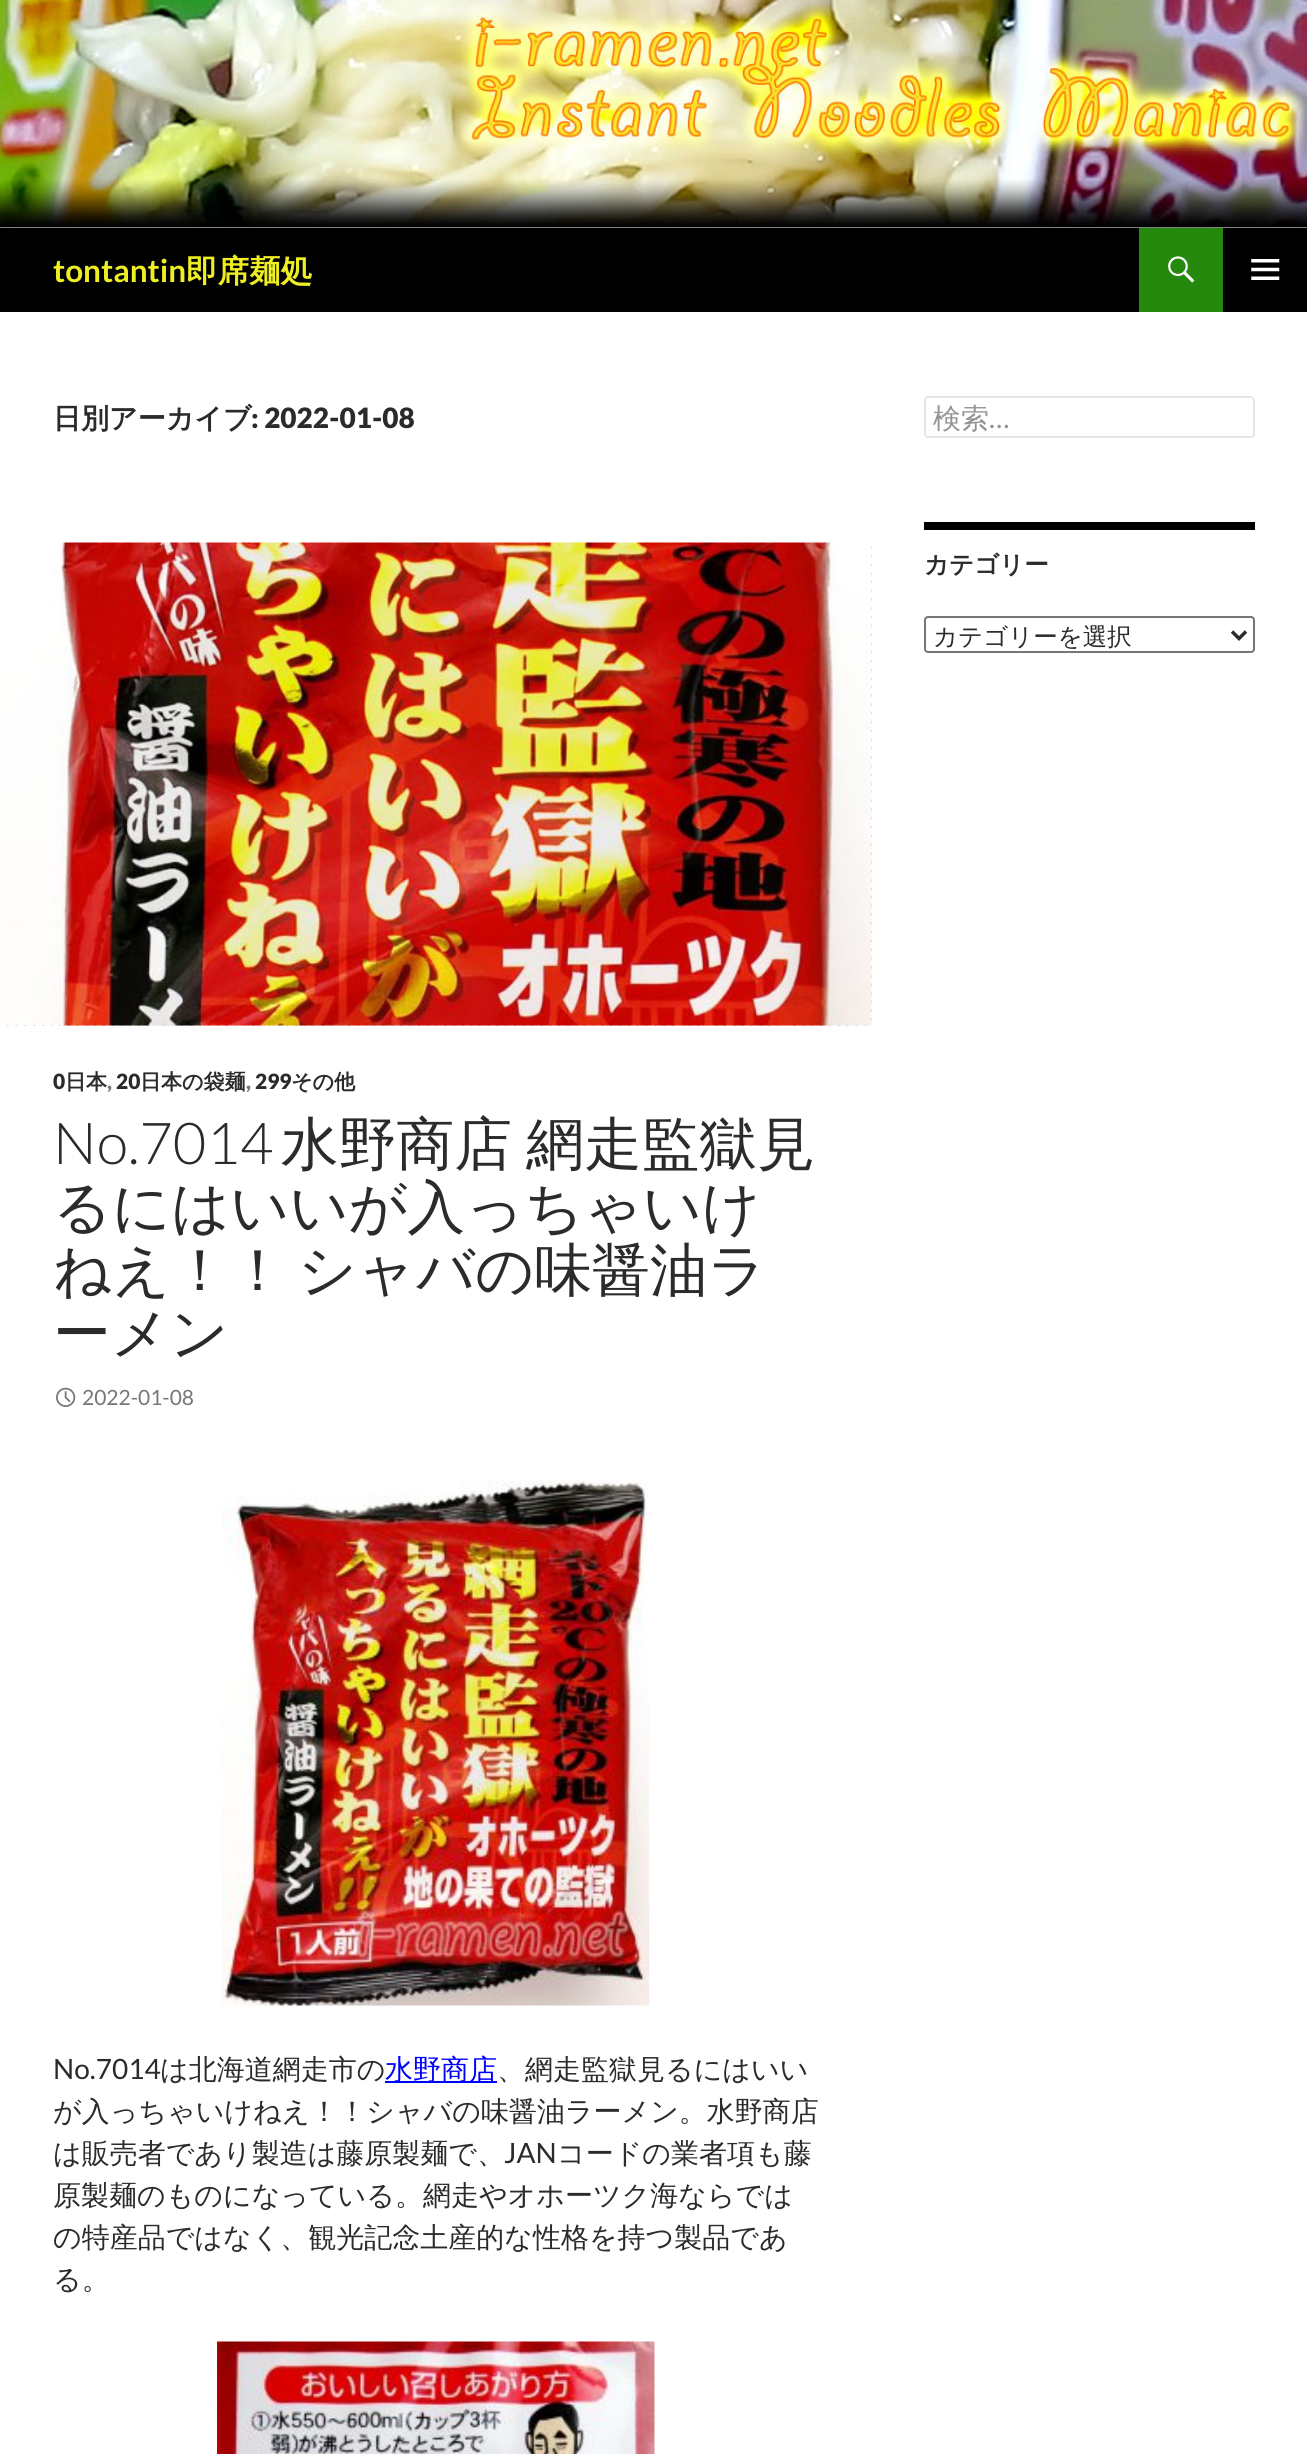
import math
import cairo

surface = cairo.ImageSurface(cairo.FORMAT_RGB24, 1307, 2454)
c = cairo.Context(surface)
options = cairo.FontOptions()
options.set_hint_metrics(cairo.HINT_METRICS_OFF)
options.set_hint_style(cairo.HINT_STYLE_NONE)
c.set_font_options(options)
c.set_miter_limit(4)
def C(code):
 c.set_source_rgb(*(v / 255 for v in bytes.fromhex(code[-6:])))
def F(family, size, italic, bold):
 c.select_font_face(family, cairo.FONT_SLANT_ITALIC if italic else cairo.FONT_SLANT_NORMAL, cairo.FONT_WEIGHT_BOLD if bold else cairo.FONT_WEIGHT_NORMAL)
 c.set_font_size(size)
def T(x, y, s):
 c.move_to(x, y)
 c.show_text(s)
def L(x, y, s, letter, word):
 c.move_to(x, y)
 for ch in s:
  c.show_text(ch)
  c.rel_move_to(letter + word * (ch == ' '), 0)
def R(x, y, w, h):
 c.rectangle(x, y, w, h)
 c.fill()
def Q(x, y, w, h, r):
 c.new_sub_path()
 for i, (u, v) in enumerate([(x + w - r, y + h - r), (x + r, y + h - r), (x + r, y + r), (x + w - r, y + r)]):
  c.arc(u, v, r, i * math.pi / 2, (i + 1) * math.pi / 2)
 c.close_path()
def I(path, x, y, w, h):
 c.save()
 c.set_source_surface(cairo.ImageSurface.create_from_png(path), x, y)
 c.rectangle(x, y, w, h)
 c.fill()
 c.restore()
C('ffffff')
c.paint()
I('1.png',0,0,1307,228)
C('000000')
R(0,228,1307,84)
F('Lato',31.5,0,1)
C('eeee22')
T(53,282,'tontantin')
F('WenQuanYi Zen Hei',31.5,0,1)
T(186,282,'即席麺処')
C('24890d')
R(1139,228,84,84)
I('2.png',1168,256,27,27)
I('3.png',1251,259,29,21)
F('WenQuanYi Zen Hei',28,0,1)
C('2b2b2b')
T(53,428,'日別アーカイブ')
F('Lato Black',28,0,0)
T(251,428,': 2022-01-08')
C('b2b2b2')
R(0,546,872,480)
I('4.png',0,543,872,483)
I('5.png',0,542,872,484)
F('Lato Black',21,0,0)
C('2b2b2b')
T(53,1089,'0')
F('WenQuanYi Zen Hei',21,0,1)
T(65,1089,'日本')
F('Lato Black',21,0,0)
C('767676')
T(107,1089,',')
C('2b2b2b')
T(116,1089,'20')
F('WenQuanYi Zen Hei',21,0,1)
T(140,1089,'日本の袋麺')
F('Lato Black',21,0,0)
C('767676')
T(246,1089,',')
C('2b2b2b')
T(255,1089,'299')
F('WenQuanYi Zen Hei',21,0,1)
T(291,1089,'その他')
F('Lato Light',57.75,0,0)
T(53,1164,'No.7014')
F('WenQuanYi Zen Hei Medium',57.75,0,0)
L(281,1164,'水野商店 網走監獄見',0,-3)
T(53,1227,'るにはいいが入っちゃいけ')
L(53,1290,'ねえ！！ シャバの味醤油ラ',0,-6)
T(53,1353,'ーメン')
I('6.png',56,1387,20,20)
F('Lato',21,0,0)
C('767676')
T(82,1405,'2022-01-08')
I('7.png',222,1480,428,526)
F('Lato',28,0,0)
C('2b2b2b')
T(53,2079,'No.7014')
F('WenQuanYi Zen Hei Medium',28,0,0)
T(160,2079,'は北海道網走市の')
C('0000ff')
R(385,2081,112,2)
T(385,2079,'水野商店')
C('2b2b2b')
T(497,2079,'、網走監獄見るにはいい')
T(53,2121,'が入っちゃいけねえ！！シャバの味醤油ラーメン。水野商店')
T(53,2163,'は販売者であり製造は藤原製麺で、')
F('Lato',28,0,0)
T(504,2163,'JAN')
F('WenQuanYi Zen Hei Medium',28,0,0)
T(557,2163,'コードの業者項も藤')
T(53,2205,'原製麺のものになっている。網走やオホーツク海ならでは')
T(53,2247,'の特産品ではなく、観光記念土産的な性格を持つ製品であ')
T(53,2289,'る。')
I('8.png',217,2341,438,113)
Q(925,397,329,40,3)
C('e6e6e6')
c.stroke()
C('939393')
T(933,428,'検索')
F('Lato',28,0,0)
T(989,428,'…')
C('000000')
R(924,522,331,8)
F('WenQuanYi Zen Hei',24.5,0,1)
C('2b2b2b')
T(924,573,'カテゴリー')
Q(925,617,329,35,3)
C('767676')
c.stroke()
c.new_path()
c.move_to(1232,631.5)
c.line_to(1239,638.5)
c.line_to(1246,631.5)
C('2b2b2b')
c.set_line_width(3.5)
c.stroke()
F('WenQuanYi Zen Hei Medium',24.5,0,0)
T(933,645,'カテゴリーを選択')
surface.write_to_png('o.png')
